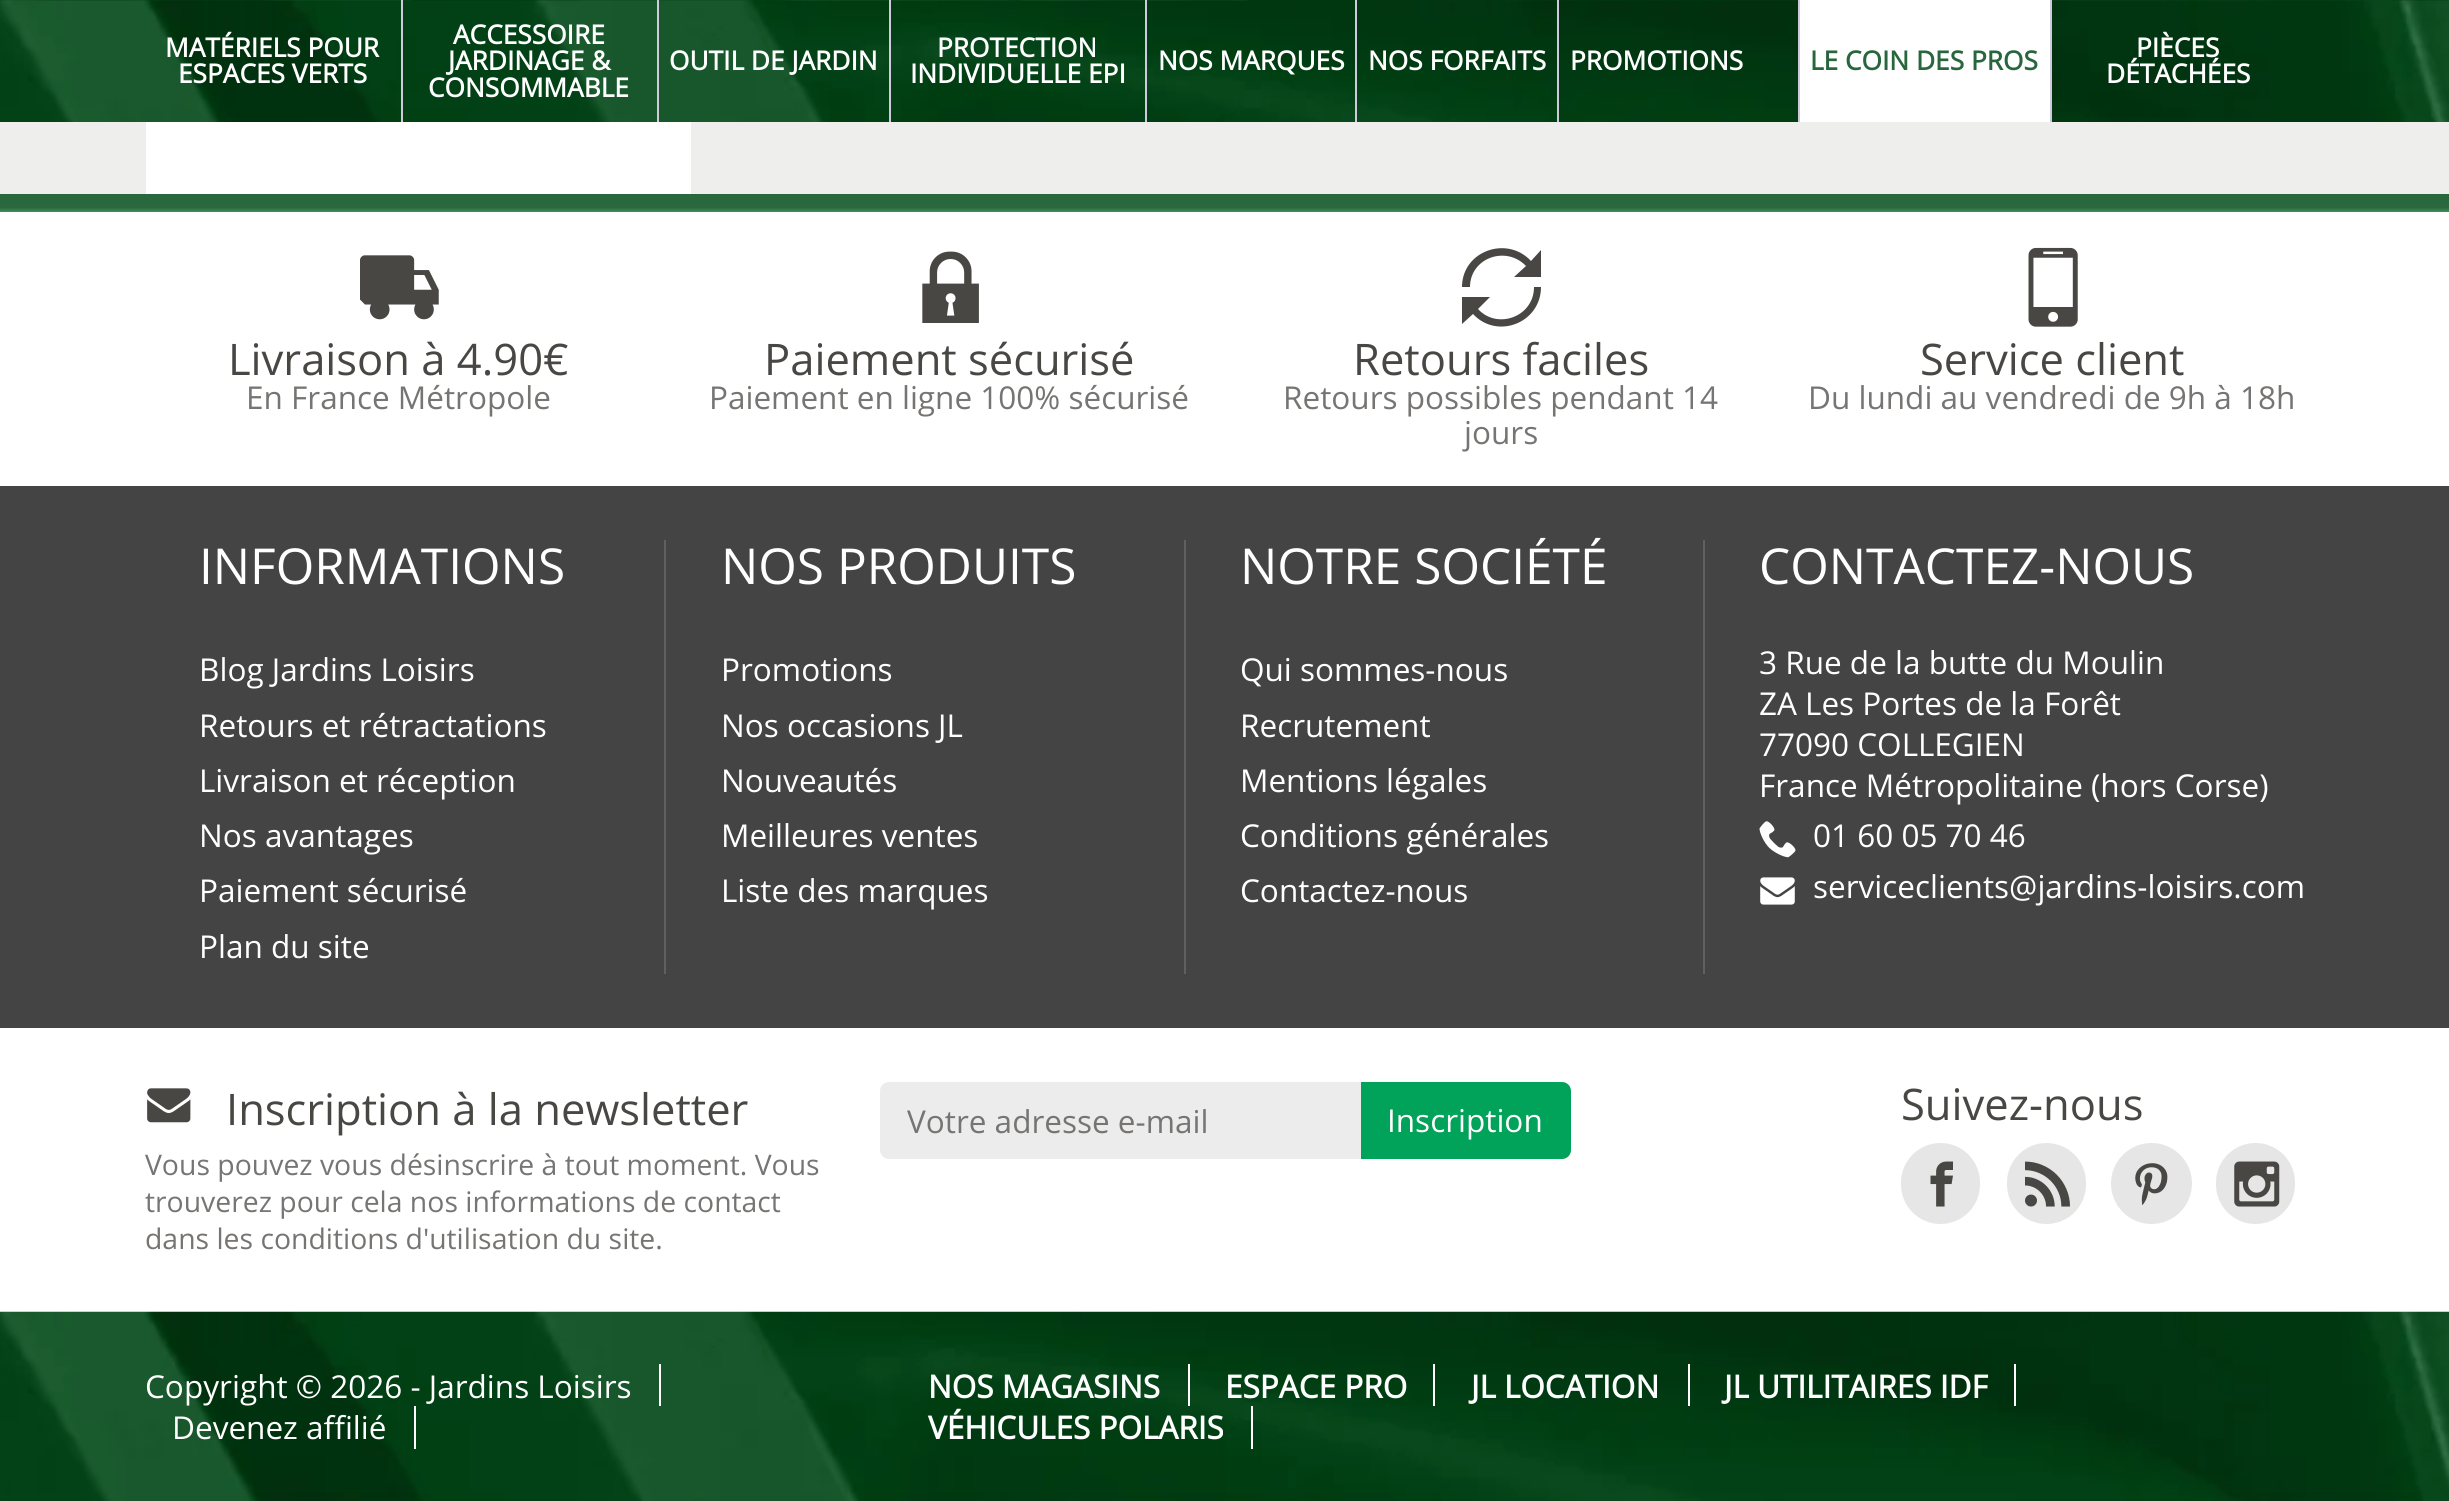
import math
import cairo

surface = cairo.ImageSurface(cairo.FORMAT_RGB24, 2449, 1501)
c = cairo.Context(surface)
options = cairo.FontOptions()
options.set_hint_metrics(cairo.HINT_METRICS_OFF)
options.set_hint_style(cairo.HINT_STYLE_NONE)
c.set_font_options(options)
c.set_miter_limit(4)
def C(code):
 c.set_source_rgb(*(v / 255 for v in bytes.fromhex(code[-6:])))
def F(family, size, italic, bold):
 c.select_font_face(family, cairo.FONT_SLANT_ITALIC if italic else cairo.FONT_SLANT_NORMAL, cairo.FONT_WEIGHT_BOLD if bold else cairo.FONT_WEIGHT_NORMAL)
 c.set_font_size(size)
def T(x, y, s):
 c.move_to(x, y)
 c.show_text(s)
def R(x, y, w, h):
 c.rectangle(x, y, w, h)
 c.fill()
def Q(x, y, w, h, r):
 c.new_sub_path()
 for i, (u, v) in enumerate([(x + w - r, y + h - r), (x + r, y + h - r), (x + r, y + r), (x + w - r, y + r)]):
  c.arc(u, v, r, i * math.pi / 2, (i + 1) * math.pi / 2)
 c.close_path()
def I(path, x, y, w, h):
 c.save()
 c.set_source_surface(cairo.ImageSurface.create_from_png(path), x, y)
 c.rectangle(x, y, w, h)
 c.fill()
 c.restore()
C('eeefed')
c.paint()
I('1.png',0,0,2449,122)
C('cfcbdd')
R(401,0,2,122)
F('Open Sans',26.25,0,1)
C('ffffff')
T(165,57,'MATÉRIELS POUR')
T(178,83,'ESPACES VERTS')
C('cfcbdd')
R(657,0,2,122)
C('ffffff')
T(453,44,'ACCESSOIRE')
T(448,70,'JARDINAGE &')
T(428,97,'CONSOMMABLE')
C('cfcbdd')
R(889,0,2,122)
C('ffffff')
T(669,70,'OUTIL DE JARDIN')
C('cfcbdd')
R(1145,0,2,122)
C('ffffff')
T(937,57,'PROTECTION')
T(910,83,'INDIVIDUELLE EPI')
C('cfcbdd')
R(1355,0,2,122)
C('ffffff')
T(1158,70,'NOS MARQUES')
C('cfcbdd')
R(1557,0,2,122)
C('ffffff')
T(1368,70,'NOS FORFAITS')
T(1570,70,'PROMOTIONS')
R(1800,0,250,122)
C('cfcbdd')
R(1798,0,2,122)
C('28663d')
T(1810,70,'LE COIN DES PROS')
C('cfcbdd')
R(2050,0,2,122)
C('ffffff')
T(2136,57,'PIÈCES')
T(2106,83,'DÉTACHÉES')
R(146,122,545,72)
gradient = cairo.LinearGradient(1225,193,1225,486)
gradient.add_color_stop_rgba(0,0.157,0.4,0.239,1)
gradient.add_color_stop_rgba(.05,0.165,0.412,0.243,1)
gradient.add_color_stop_rgba(.08,0.361,0.706,0.471,1)
gradient.add_color_stop_rgba(.1,0.596,0.769,0.333,1)
c.set_source(gradient)
R(0,194,2449,18)
C('ffffff')
R(0,212,2449,274)
I('2.png',360,255,79,65)
F('Open Sans',43.5,0,0)
C('484744')
T(228,375,'Livraison à 4.90€')
F('Open Sans',31.5,0,0)
C('767573')
T(246,409,'En France Métropole')
I('3.png',922,251,57,72)
F('Open Sans',43.5,0,0)
C('484744')
T(764,375,'Paiement sécurisé')
F('Open Sans',31.5,0,0)
C('767573')
T(709,409,'Paiement en ligne 100% sécurisé')
C('484744')
c.new_path()
c.move_to(1531,261)
c.curve_to(1507,235,1462,251,1462,287)
c.line_to(1470,287)
c.curve_to(1470,258,1506,245,1526,266)
c.line_to(1514,277)
c.line_to(1541,277)
c.line_to(1541,250)
c.close_path()
c.move_to(1534,287)
c.curve_to(1534,317,1497,330,1478,309)
c.line_to(1490,297)
c.line_to(1462,297)
c.line_to(1462,324)
c.line_to(1473,314)
c.curve_to(1497,340,1541,323,1541,287)
c.close_path()
c.fill()
F('Open Sans',43.5,0,0)
T(1353,375,'Retours faciles')
F('Open Sans',31.5,0,0)
C('767573')
T(1283,409,'Retours possibles pendant 14')
T(1464,444,'jours')
I('4.png',2028,247,50,80)
F('Open Sans',43.5,0,0)
C('484744')
T(1920,375,'Service client')
F('Open Sans',31.5,0,0)
C('767573')
T(1808,409,'Du lundi au vendredi de 9h à 18h')
C('444444')
R(0,486,2449,542)
F('Open Sans',49.5,0,0)
C('ffffff')
T(199,584,'INFORMATIONS')
F('Open Sans',31.5,0,0)
T(199,681,'Blog Jardins Loisirs')
T(199,737,'Retours et rétractations')
T(199,792,'Livraison et réception')
T(199,847,'Nos avantages')
T(199,902,'Paiement sécurisé')
T(199,958,'Plan du site')
C('606060')
R(664,540,2,434)
F('Open Sans',49.5,0,0)
C('ffffff')
T(721,584,'NOS PRODUITS')
F('Open Sans',31.5,0,0)
T(721,681,'Promotions')
T(721,737,'Nos occasions JL')
T(721,792,'Nouveautés')
T(721,847,'Meilleures ventes')
T(721,902,'Liste des marques')
C('606060')
R(1184,540,2,434)
F('Open Sans',49.5,0,0)
C('ffffff')
T(1240,584,'NOTRE SOCIÉTÉ')
F('Open Sans',31.5,0,0)
T(1240,681,'Qui sommes-nous')
T(1240,737,'Recrutement')
T(1240,792,'Mentions légales')
T(1240,847,'Conditions générales')
T(1240,902,'Contactez-nous')
C('606060')
R(1703,540,2,434)
F('Open Sans',49.5,0,0)
C('ffffff')
T(1759,584,'CONTACTEZ-NOUS')
F('Open Sans',31.5,0,0)
T(1759,674,'3 Rue de la butte du Moulin')
T(1759,715,'ZA Les Portes de la Forêt')
T(1759,756,'77090 COLLEGIEN')
T(1759,797,'France Métropolitaine (hors Corse)')
I('5.png',1759,821,37,37)
T(1813,847,'01 60 05 70 46')
I('6.png',1760,877,35,28)
T(1813,898,'serviceclients@jardins-loisirs.com')
R(0,1028,2449,284)
I('7.png',147,1088,44,35)
F('Open Sans',43.5,0,0)
C('484744')
T(226,1125,'Inscription à la newsletter')
F('Open Sans',28.35,0,0)
C('767573')
T(145,1175,'Vous pouvez vous désinscrire à tout moment. Vous')
T(145,1212,'trouverez pour cela nos informations de contact')
T(145,1249,'dans les conditions d\'utilisation du site.')
C('ececec')
c.new_path()
c.move_to(889,1082)
c.line_to(1361,1082)
c.line_to(1361,1159)
c.line_to(889,1159)
c.curve_to(884,1159,880,1155,880,1150)
c.line_to(880,1091)
c.curve_to(880,1086,884,1082,889,1082)
c.close_path()
c.fill()
F('Open Sans',31.5,0,0)
C('767573')
T(907,1133,'Votre adresse e-mail')
C('00a359')
c.new_path()
c.move_to(1361,1082)
c.line_to(1562,1082)
c.curve_to(1567,1082,1571,1086,1571,1091)
c.line_to(1571,1150)
c.curve_to(1571,1155,1567,1159,1562,1159)
c.line_to(1361,1159)
c.close_path()
c.fill()
C('ffffff')
T(1387,1132,'Inscription')
F('Open Sans',43.5,0,0)
C('484744')
T(1901,1120,'Suivez-nous')
C('e6e6e6')
Q(1901,1143,79,81,39.5)
c.fill()
I('8.png',1930,1161,23,46)
Q(2007,1143,79,81,39.5)
c.fill()
I('9.png',2025,1161,45,46)
c.arc(2151.5,1183.5,40.5,0,2 * math.pi)
c.fill()
I('10.png',2135,1163,33,42)
Q(2216,1143,79,81,39.5)
c.fill()
I('11.png',2234,1161,46,46)
I('12.png',0,1311,2449,190)
F('Open Sans',31.5,0,0)
C('ffffff')
T(145,1398,'Copyright © 2026 - Jardins Loisirs')
R(659,1364,2,42)
T(172,1439,'Devenez affilié')
R(414,1406,2,43)
F('Open Sans',31.5,0,1)
T(928,1398,'NOS MAGASINS')
R(1188,1364,2,42)
T(1225,1398,'ESPACE PRO')
R(1433,1364,2,42)
T(1471,1398,'JL LOCATION')
R(1688,1364,2,42)
T(1724,1398,'JL UTILITAIRES IDF')
R(2014,1364,2,42)
T(928,1439,'VÉHICULES POLARIS')
R(1251,1406,2,43)
surface.write_to_png('o.png')
